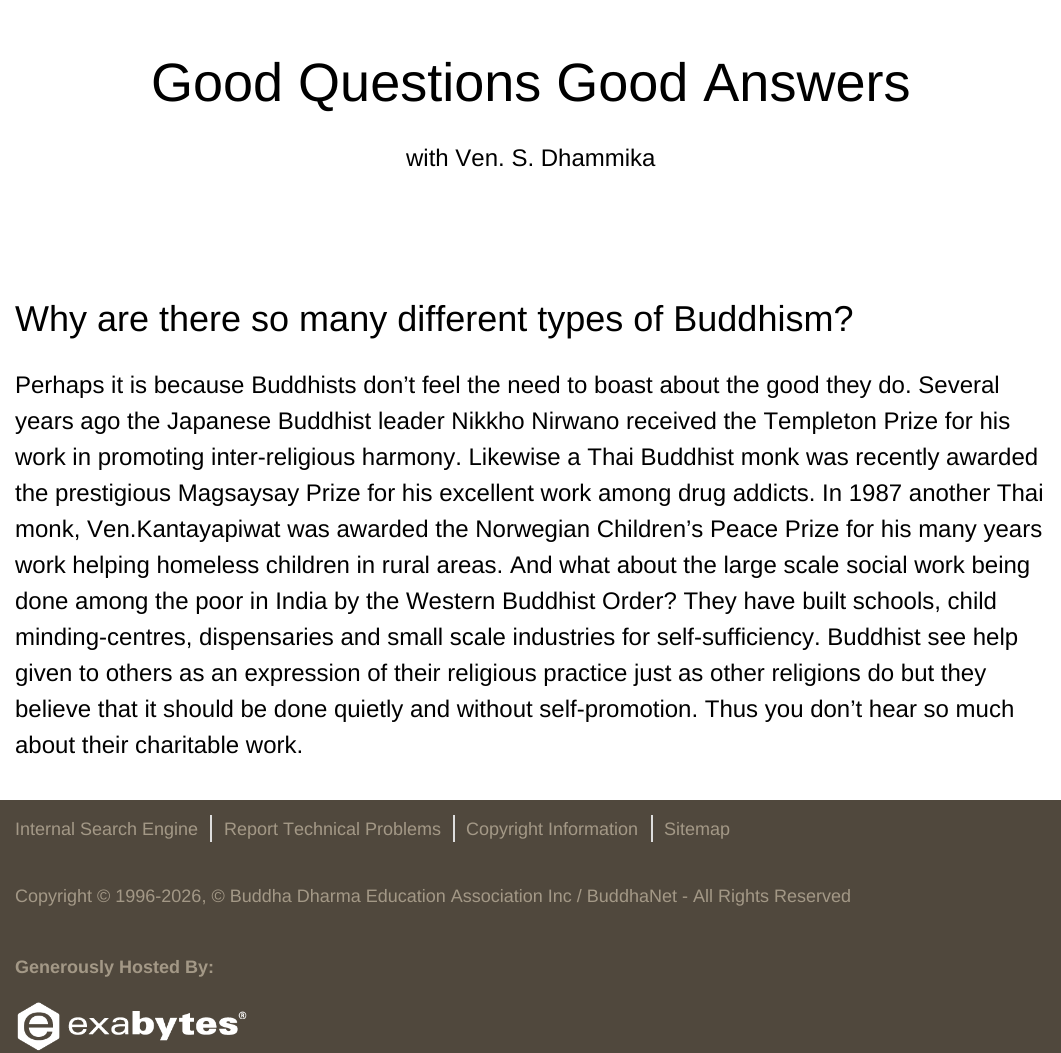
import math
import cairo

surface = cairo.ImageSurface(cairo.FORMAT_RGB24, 1061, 1053)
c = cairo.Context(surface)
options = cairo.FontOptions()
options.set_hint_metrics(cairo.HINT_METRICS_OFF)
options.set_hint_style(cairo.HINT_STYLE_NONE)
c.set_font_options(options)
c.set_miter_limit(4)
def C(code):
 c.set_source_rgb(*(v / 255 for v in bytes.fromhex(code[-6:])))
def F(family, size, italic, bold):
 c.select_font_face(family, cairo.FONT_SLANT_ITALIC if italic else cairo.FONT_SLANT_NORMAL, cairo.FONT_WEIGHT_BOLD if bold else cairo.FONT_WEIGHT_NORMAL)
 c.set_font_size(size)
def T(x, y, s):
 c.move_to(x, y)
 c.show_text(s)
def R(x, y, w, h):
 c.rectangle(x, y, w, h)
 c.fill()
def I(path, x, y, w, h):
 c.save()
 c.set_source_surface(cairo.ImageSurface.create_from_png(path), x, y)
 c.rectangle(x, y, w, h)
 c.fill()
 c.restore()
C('ffffff')
c.paint()
F('Liberation Sans',54,0,0)
C('000000')
T(151,101,'Good Questions Good Answers')
F('Liberation Sans',24,0,0)
T(406,166,'with Ven. S. Dhammika')
F('Liberation Sans',36,0,0)
T(15,331,'Why are there so many different types of Buddhism?')
F('Liberation Sans',24,0,0)
T(15,393,'Perhaps it is because Buddhists don’t feel the need to boast about the good they do. Several')
T(15,429,'years ago the Japanese Buddhist leader Nikkho Nirwano received the Templeton Prize for his')
T(15,465,'work in promoting inter-religious harmony. Likewise a Thai Buddhist monk was recently awarded')
T(15,501,'the prestigious Magsaysay Prize for his excellent work among drug addicts. In 1987 another Thai')
T(15,537,'monk, Ven.Kantayapiwat was awarded the Norwegian Children’s Peace Prize for his many years')
T(15,573,'work helping homeless children in rural areas. And what about the large scale social work being')
T(15,609,'done among the poor in India by the Western Buddhist Order? They have built schools, child')
T(15,645,'minding-centres, dispensaries and small scale industries for self-sufficiency. Buddhist see help')
T(15,681,'given to others as an expression of their religious practice just as other religions do but they')
T(15,717,'believe that it should be done quietly and without self-promotion. Thus you don’t hear so much')
T(15,753,'about their charitable work.')
C('50483d')
R(0,800,1061,253)
F('Liberation Sans',18,0,0)
C('a39886')
T(15,835,'Internal Search Engine')
C('dddddd')
R(210,815,2,27)
C('a39886')
T(224,835,'Report Technical Problems')
C('dddddd')
R(453,815,2,27)
C('a39886')
T(466,835,'Copyright Information')
C('dddddd')
R(651,815,2,27)
C('a39886')
T(664,835,'Sitemap')
T(15,902,'Copyright © 1996-2026, © Buddha Dharma Education Association Inc / BuddhaNet - All Rights Reserved')
F('Liberation Sans',18,0,1)
T(15,973,'Generously Hosted By:')
I('1.png',17,1002,230,49)
surface.write_to_png('o.png')
